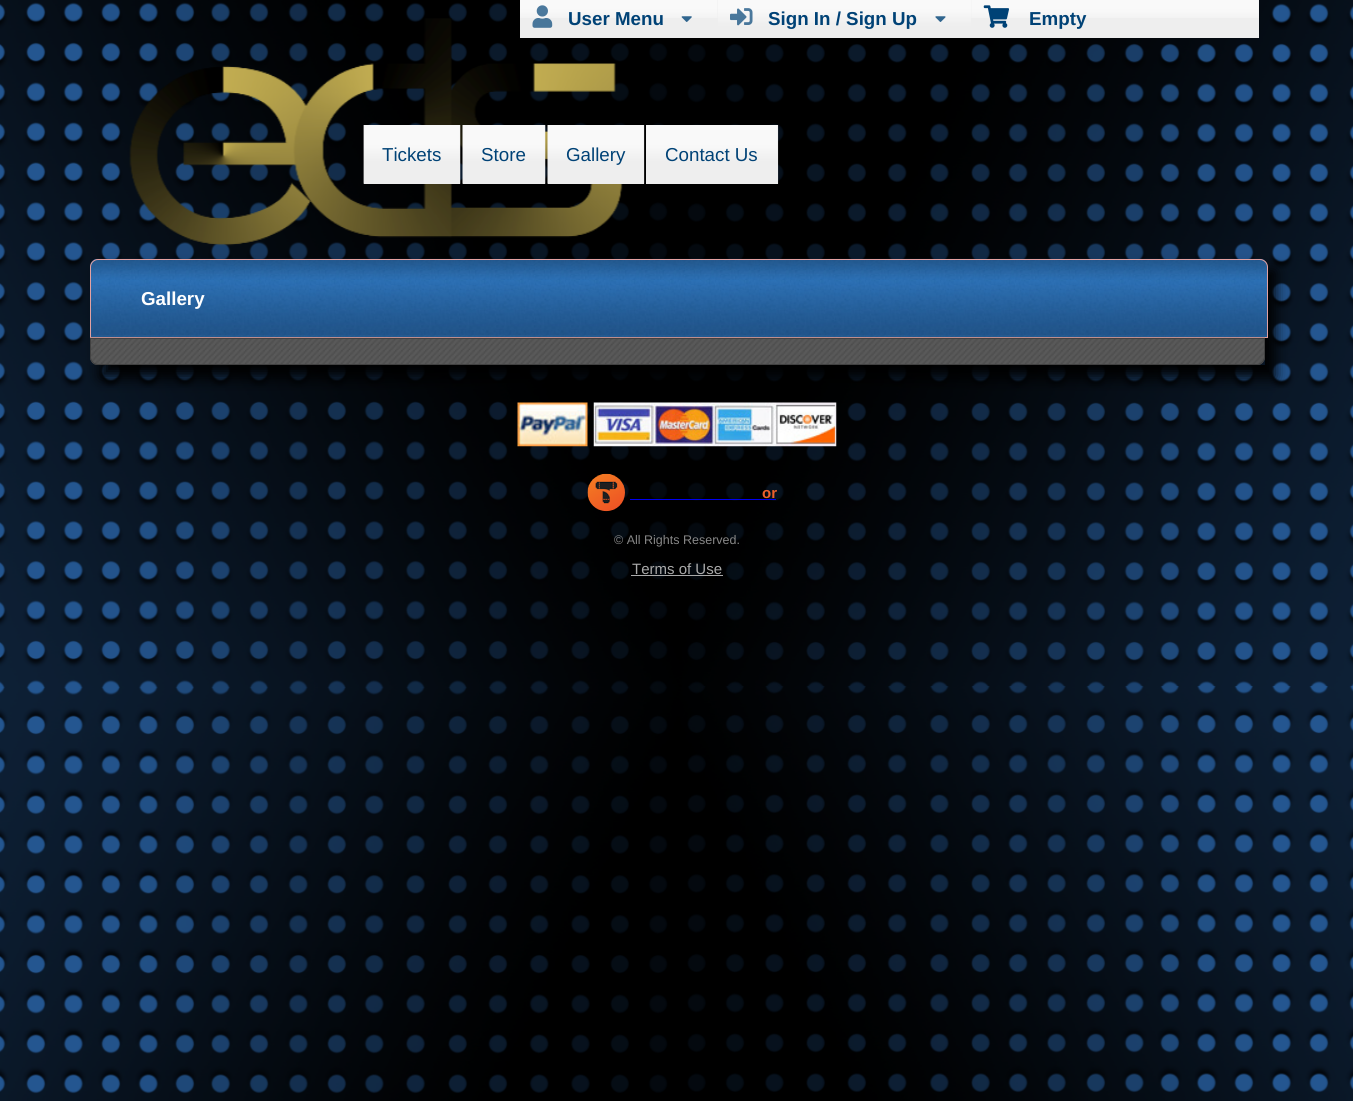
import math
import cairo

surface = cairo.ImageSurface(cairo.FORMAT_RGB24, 1353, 1101)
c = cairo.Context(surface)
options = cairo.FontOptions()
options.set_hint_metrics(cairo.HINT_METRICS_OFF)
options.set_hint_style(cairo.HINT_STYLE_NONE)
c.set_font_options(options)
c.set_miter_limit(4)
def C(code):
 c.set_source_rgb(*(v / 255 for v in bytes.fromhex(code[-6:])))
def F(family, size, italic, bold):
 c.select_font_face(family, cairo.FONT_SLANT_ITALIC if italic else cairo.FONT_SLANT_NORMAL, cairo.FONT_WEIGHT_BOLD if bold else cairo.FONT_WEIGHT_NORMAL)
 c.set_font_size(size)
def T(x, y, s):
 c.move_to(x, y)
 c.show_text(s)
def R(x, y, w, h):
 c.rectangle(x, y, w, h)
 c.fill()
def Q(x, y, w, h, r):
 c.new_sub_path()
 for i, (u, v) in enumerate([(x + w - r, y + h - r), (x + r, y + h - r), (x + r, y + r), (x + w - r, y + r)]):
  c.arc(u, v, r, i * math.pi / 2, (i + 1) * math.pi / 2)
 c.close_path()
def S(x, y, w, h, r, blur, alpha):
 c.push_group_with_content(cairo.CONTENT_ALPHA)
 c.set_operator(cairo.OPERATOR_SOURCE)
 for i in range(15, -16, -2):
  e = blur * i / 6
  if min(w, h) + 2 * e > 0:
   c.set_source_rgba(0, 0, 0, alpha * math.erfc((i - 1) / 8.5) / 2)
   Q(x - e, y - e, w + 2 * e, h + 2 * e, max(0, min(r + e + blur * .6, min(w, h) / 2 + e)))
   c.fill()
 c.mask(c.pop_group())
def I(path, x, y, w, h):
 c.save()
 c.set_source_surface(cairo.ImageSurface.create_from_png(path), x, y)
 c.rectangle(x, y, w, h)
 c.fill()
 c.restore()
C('ffffff')
c.paint()
I('1.png',0,0,1353,1101)
I('2.png',129,18,494,228)
C('eeeeee')
R(520,0,198,38)
I('3.png',520,0,198,18)
I('4.png',532,5,21,23)
F('Liberation Sans',18.75,0,1)
C('004276')
T(568,25,'User Menu')
I('5.png',681,16,11,6)
C('eeeeee')
R(718,37,253,1)
I('6.png',718,0,253,38)
I('7.png',730,8,23,18)
C('004276')
T(768,25,'Sign In / Sign Up')
I('8.png',935,16,11,6)
C('eeeeee')
R(971,0,288,38)
I('9.png',971,0,288,18)
I('10.png',983,5,26,23)
C('004276')
T(1029,25,'Empty')
C('eeeeee')
R(364,125,96,59)
I('11.png',363,125,98,59)
F('Liberation Sans',18.75,0,0)
C('004276')
T(382,161,'Tickets')
C('eeeeee')
R(463,125,82,59)
I('12.png',462,125,84,59)
C('004276')
T(481,161,'Store')
C('eeeeee')
R(548,125,96,59)
I('13.png',547,125,98,59)
C('004276')
T(566,161,'Gallery')
C('eeeeee')
R(646,125,132,59)
I('14.png',646,125,133,59)
C('004276')
T(665,161,'Contact Us')
c.save()
c.set_fill_rule(cairo.FILL_RULE_EVEN_ODD)
c.new_path()
c.move_to(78,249)
c.line_to(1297,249)
c.line_to(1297,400)
c.line_to(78,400)
c.close_path()
c.move_to(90,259)
c.line_to(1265,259)
c.line_to(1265,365)
c.line_to(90,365)
c.close_path()
c.clip()
C('000000')
S(100,271,1175,107,0,7,1)
c.restore()
I('15.png',90,258,1178,79)
c.new_path()
c.move_to(98,259.5)
c.line_to(1260,259.5)
c.curve_to(1264,259.5,1267.5,263,1267.5,267)
c.line_to(1267.5,337.5)
c.line_to(90.5,337.5)
c.line_to(90.5,267)
c.curve_to(90.5,263,94,259.5,98,259.5)
c.close_path()
C('e3a1a1')
c.set_line_width(1)
c.stroke()
F('Liberation Sans',18.75,0,1)
C('ffffff')
T(141,305,'Gallery')
I('16.png',90,337,1175,28)
c.new_path()
c.move_to(90.5,338.5)
c.line_to(1264.5,338.5)
c.line_to(1264.5,357)
c.curve_to(1264.5,361,1261,364.5,1257,364.5)
c.line_to(98,364.5)
c.curve_to(94,364.5,90.5,361,90.5,357)
c.close_path()
C('414141')
c.stroke()
I('17.png',517,402,71,45)
I('18.png',593,402,244,45)
I('19.png',587,473,38,39)
F('Liberation Sans',15,0,1)
C('ed612b')
T(762,498,'or')
C('0000ee')
R(630,499,146,1)
F('Liberation Sans',12.5,0,0)
C('888888')
T(614,544,'© All Rights Reserved.')
F('Liberation Sans',15,0,0)
C('aaaaaa')
T(632,574,'Terms of Use')
R(631,575,92,1)
surface.write_to_png('o.png')
